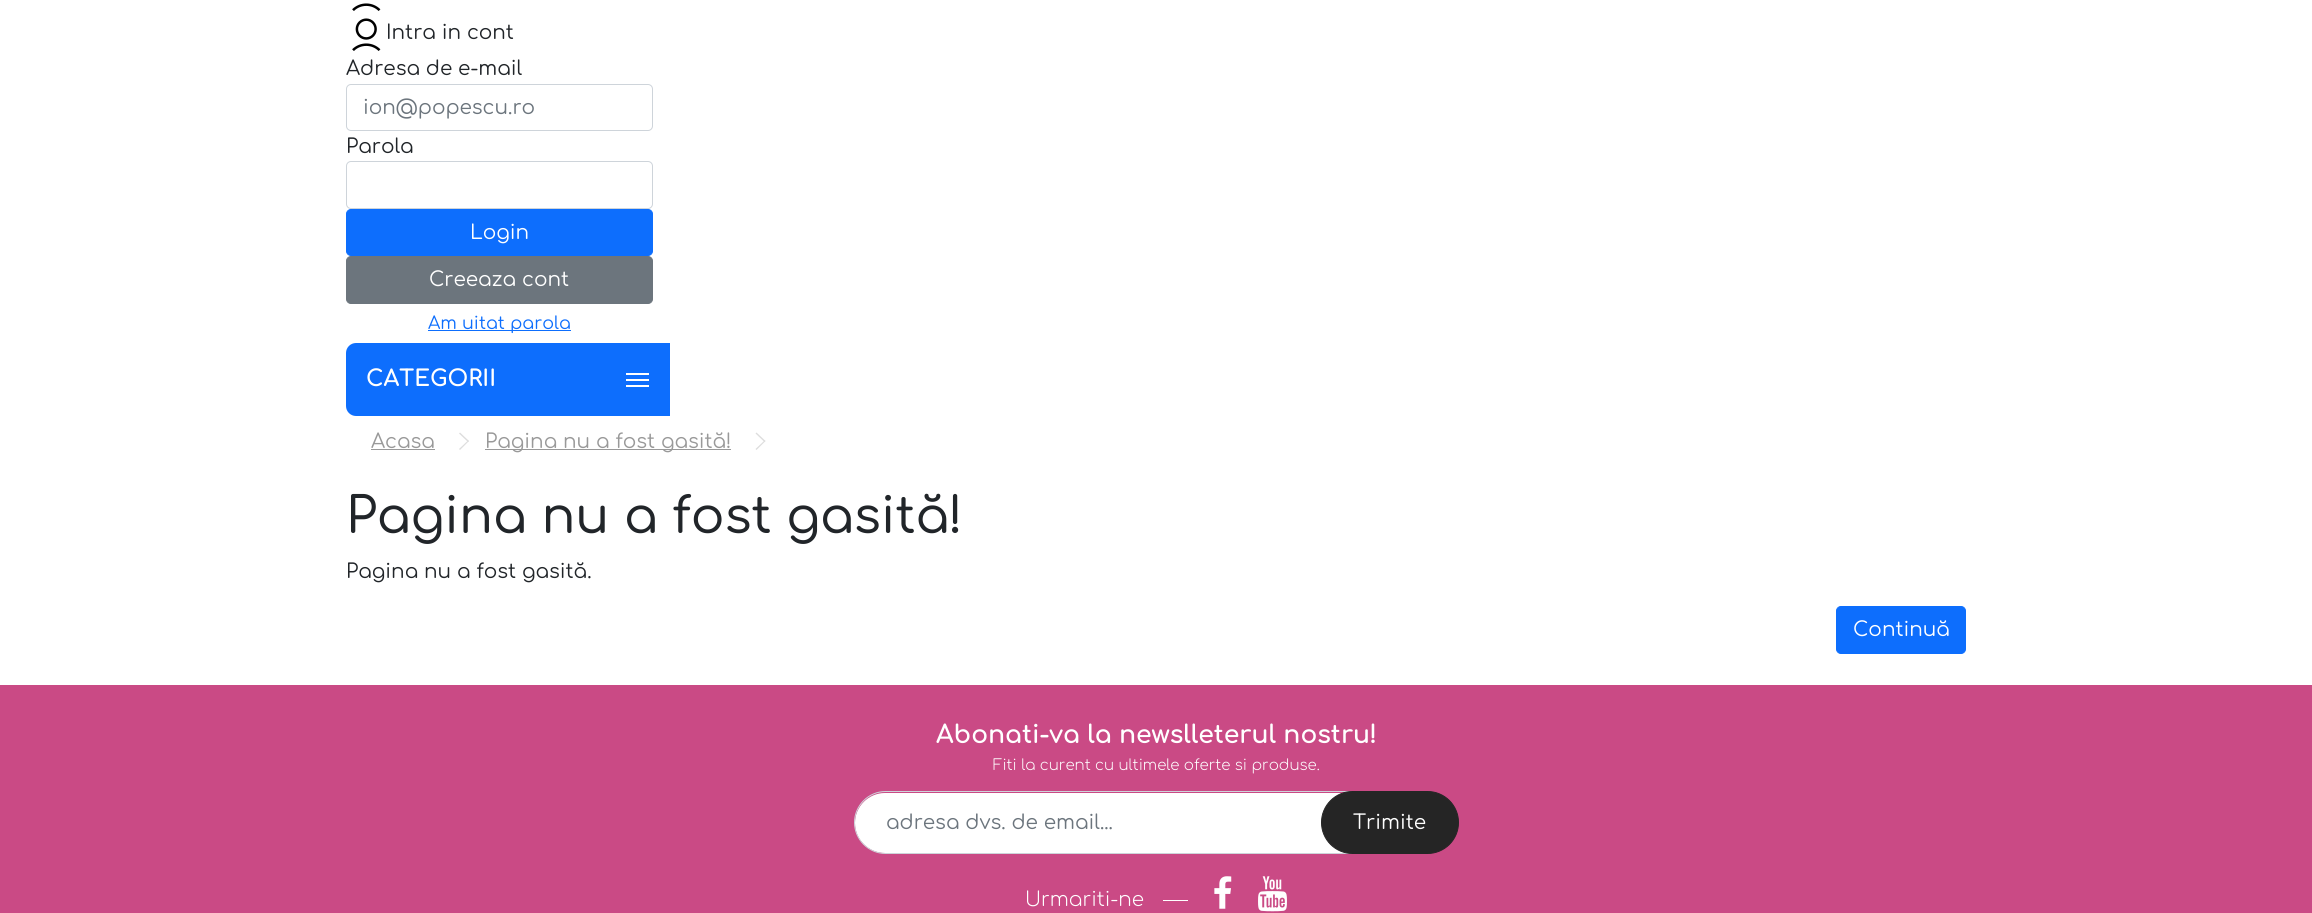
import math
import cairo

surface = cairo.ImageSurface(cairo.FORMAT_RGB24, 2312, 913)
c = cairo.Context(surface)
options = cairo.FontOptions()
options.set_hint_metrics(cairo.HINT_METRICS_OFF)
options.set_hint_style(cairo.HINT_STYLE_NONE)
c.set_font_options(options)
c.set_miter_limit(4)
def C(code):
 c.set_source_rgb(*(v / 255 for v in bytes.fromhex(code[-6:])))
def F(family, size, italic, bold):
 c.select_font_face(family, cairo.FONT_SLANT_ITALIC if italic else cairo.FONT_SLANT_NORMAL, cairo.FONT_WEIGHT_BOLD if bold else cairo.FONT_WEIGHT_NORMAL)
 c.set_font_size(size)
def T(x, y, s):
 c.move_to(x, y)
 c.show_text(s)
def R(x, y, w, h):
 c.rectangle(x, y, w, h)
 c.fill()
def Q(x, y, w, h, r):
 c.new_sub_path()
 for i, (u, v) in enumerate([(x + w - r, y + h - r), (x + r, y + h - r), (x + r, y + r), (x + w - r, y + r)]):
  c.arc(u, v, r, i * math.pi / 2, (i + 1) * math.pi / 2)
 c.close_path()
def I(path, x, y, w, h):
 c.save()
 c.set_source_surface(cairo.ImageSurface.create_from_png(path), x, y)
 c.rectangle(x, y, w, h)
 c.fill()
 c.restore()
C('ffffff')
c.paint()
I('1.png',352,3,29,8)
I('2.png',352,18,29,33)
F('Comfortaa',20,0,0)
C('212529')
T(386,39,'Intra in cont')
T(346,75,'Adresa de e-mail')
Q(346.5,84.5,306,46,4.5)
C('ced4da')
c.set_line_width(1)
c.stroke()
C('6c757d')
T(363,114,'ion@popescu.ro')
C('212529')
T(346,153,'Parola')
Q(346.5,161.5,306,47,4.5)
C('ced4da')
c.stroke()
C('0d6efd')
Q(346.5,209.5,306,46,4.5)
c.fill_preserve()
c.stroke()
C('ffffff')
T(470,239,'Login')
C('6c757d')
Q(346.5,256.5,306,47,4.5)
c.fill_preserve()
c.stroke()
C('ffffff')
T(429,286,'Creeaza cont')
C('0d6efd')
R(428,330,143,1)
F('Comfortaa',17.5,0,0)
T(428,329,'Am uitat parola')
c.new_path()
c.move_to(356,343)
c.line_to(670,343)
c.line_to(670,416)
c.line_to(356,416)
c.curve_to(350.5,416,346,411.5,346,406)
c.line_to(346,353)
c.curve_to(346,347.5,350.5,343,356,343)
c.close_path()
c.fill()
F('Comfortaa',22.5,0,1)
C('ffffff')
T(366,386,'CATEGORII')
R(626,379,23,2)
R(626,373,23,2)
R(626,385,23,2)
F('Comfortaa',20,0,0)
C('999999')
T(371,448,'Acasa')
R(371,449,64,1)
C('dddddd')
c.new_path()
c.move_to(459,433.5)
c.line_to(460,432.5)
c.line_to(469,441)
c.line_to(468,442)
c.close_path()
c.fill()
c.new_path()
c.move_to(459,449)
c.line_to(468,440.5)
c.line_to(469,441)
c.line_to(460,450)
c.close_path()
c.fill()
C('999999')
R(485,449,246,1)
T(485,448,'Pagina nu a fost gasită!')
C('dddddd')
c.new_path()
c.move_to(755.5,433.5)
c.line_to(756.5,432.5)
c.line_to(765.5,441)
c.line_to(764.5,442)
c.close_path()
c.fill()
c.new_path()
c.move_to(755.5,449)
c.line_to(764.5,440.5)
c.line_to(765.5,441)
c.line_to(756.5,450)
c.close_path()
c.fill()
F('Comfortaa Medium',50,0,0)
C('212529')
T(346,533,'Pagina nu a fost gasită!')
F('Comfortaa',20,0,0)
T(346,578,'Pagina nu a fost gasită.')
C('0d6efd')
Q(1836.5,606.5,129,47,4.5)
c.fill_preserve()
c.stroke()
C('ffffff')
T(1853,636,'Continuă')
C('ca4a85')
R(0,685,2312,228)
F('Comfortaa',25,0,1)
C('ffffff')
T(936,743,'Abonati-va la newslleterul nostru!')
F('Comfortaa Light',15,0,0)
T(993,770,'Fiti la curent cu ultimele oferte si produse.')
c.new_path()
c.move_to(885,793)
c.line_to(1353,793)
c.line_to(1353,853)
c.line_to(885,853)
c.curve_to(868.5,853,855,839.5,855,823)
c.curve_to(855,806.5,868.5,793,885,793)
c.close_path()
c.fill()
c.new_path()
c.move_to(885.5,791.5)
c.line_to(1353.5,791.5)
c.line_to(1353.5,853.5)
c.line_to(885.5,853.5)
c.curve_to(868.5,853.5,854.5,839.5,854.5,822.5)
c.curve_to(854.5,805.5,868.5,791.5,885.5,791.5)
c.close_path()
C('ced4da')
c.stroke()
F('Comfortaa',20,0,0)
C('6c757d')
T(886,829,'adresa dvs. de email...')
C('252525')
Q(1321.5,791.5,137,62,31)
c.fill_preserve()
c.stroke()
C('ffffff')
T(1353,829,'Trimite')
F('Comfortaa Light',20,0,0)
T(1025,906,'Urmariti-ne')
R(1163,900,25,1)
I('3.png',1214,876,18,33)
I('4.png',1258,876,29,36)
surface.write_to_png('o.png')
